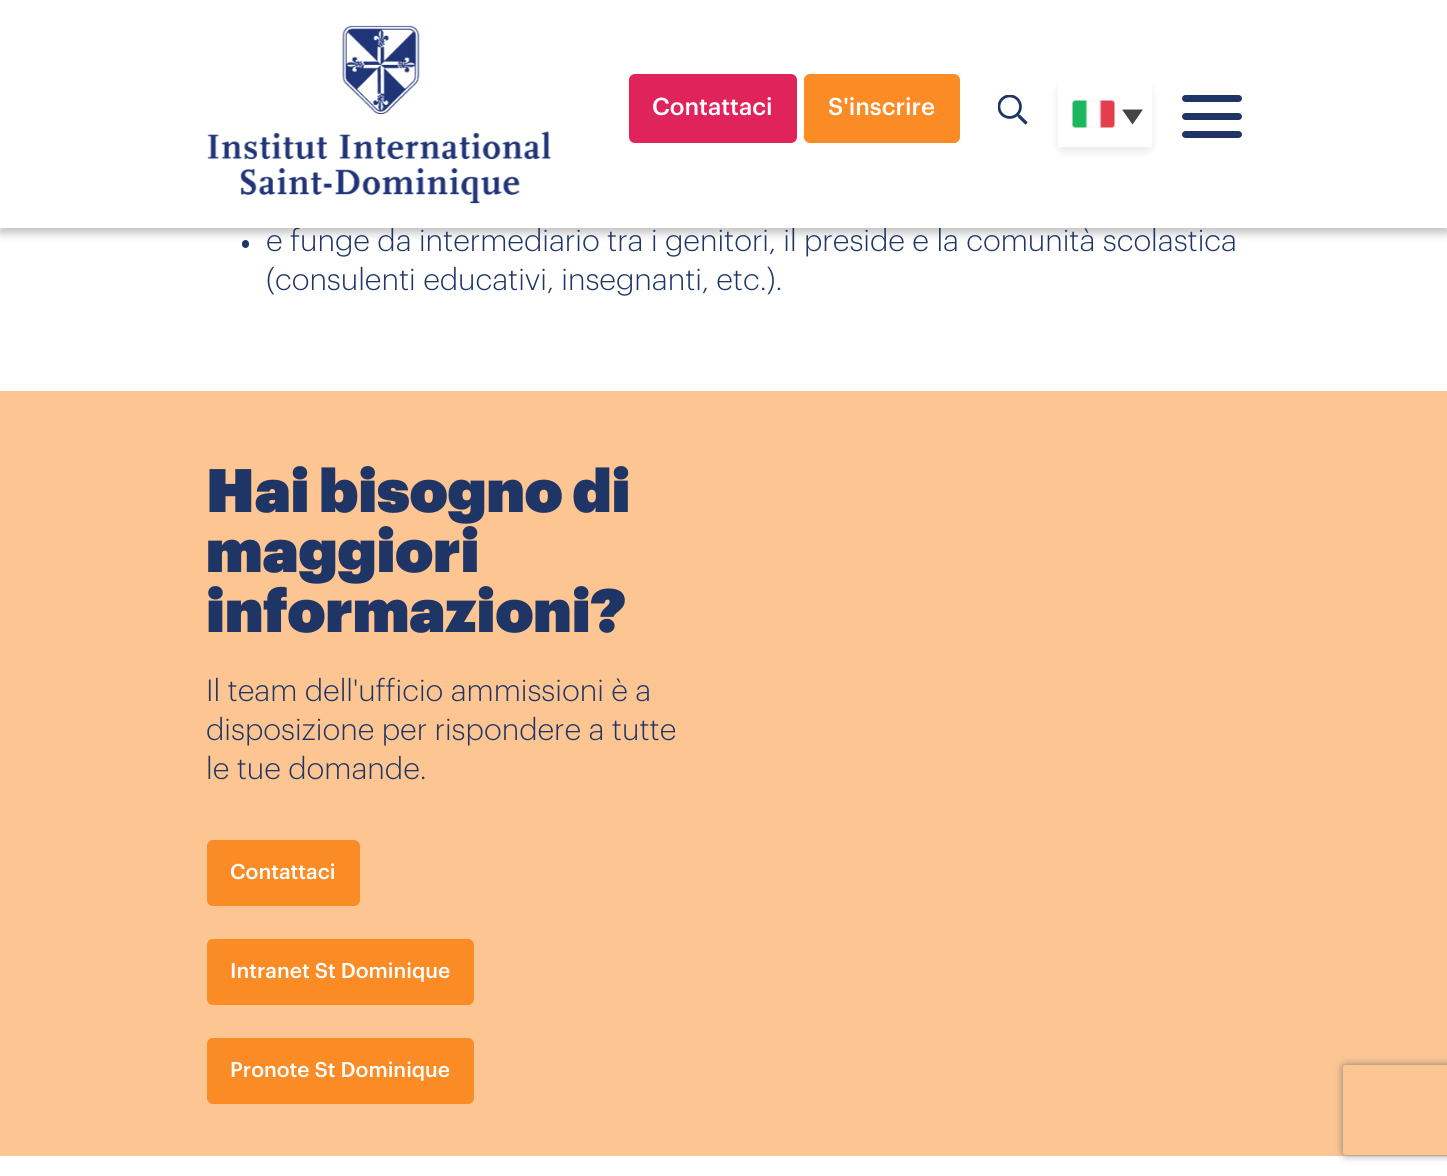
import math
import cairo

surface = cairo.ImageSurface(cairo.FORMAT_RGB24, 1447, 1176)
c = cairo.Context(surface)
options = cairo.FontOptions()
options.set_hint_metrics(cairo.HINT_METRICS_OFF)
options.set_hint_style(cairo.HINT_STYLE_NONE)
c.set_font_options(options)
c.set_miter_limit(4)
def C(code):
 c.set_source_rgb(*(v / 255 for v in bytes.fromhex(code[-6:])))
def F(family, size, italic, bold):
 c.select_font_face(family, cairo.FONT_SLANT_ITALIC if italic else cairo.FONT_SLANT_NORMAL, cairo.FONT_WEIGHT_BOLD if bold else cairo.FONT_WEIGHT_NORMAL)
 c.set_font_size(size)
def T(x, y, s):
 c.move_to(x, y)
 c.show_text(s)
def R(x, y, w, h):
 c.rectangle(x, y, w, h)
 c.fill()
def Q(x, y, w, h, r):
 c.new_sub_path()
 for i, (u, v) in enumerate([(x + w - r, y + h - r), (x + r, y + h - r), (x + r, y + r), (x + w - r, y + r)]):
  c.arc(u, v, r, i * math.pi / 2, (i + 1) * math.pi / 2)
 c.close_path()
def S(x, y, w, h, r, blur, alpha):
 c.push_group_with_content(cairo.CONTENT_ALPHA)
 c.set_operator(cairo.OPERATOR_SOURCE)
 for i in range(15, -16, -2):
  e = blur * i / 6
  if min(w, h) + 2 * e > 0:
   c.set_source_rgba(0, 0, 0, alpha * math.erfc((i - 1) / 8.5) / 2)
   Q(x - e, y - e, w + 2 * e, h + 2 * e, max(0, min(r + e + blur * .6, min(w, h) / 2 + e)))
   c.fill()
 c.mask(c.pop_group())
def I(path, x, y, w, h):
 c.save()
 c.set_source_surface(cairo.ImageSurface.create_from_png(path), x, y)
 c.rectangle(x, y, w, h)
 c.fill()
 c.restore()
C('ffffff')
c.paint()
C('1f3565')
Q(242,240,7,8,3.5)
c.fill()
C('000000')
S(0,5,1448,228,0,4.5,.25)
F('Graphik Light',30,0,0)
C('1f3565')
T(266,251,'e funge da intermediario tra i genitori, il preside e la comunità scolastica')
C('ffffff')
R(0,0,1447,228)
I('1.png',207,25,345,179)
C('e0245b')
Q(630,75,166,67,5)
c.fill_preserve()
c.stroke()
F('Graphik Medium',24,0,0)
C('ffffff')
T(652,115,'Contattaci')
C('fb8b24')
Q(805,75,154,67,5)
c.fill_preserve()
c.stroke()
C('ffffff')
T(828,115,'S\'inscrire')
I('2.png',998,95,30,30)
C('000000')
S(1058,86,94,66,6,4.5,.08)
C('ffffff')
R(1058,81,94,66)
I('3.png',1072,100,43,28)
C('444444')
c.new_path()
c.move_to(1122,109.5)
c.line_to(1143,109.5)
c.line_to(1132.5,124.5)
c.close_path()
c.fill()
C('1f3565')
Q(1182,95,60,7,3.5)
c.fill()
Q(1182,113,60,7,3.5)
c.fill()
Q(1182,131,60,7,3.5)
c.fill()
F('Graphik Light',30,0,0)
T(266,290,'(consulenti educativi, insegnanti, etc.).')
C('fdc592')
R(0,391,1447,765)
F('Graphik Black',60,0,0)
C('1f3565')
T(206,512,'Hai bisogno di')
T(206,572,'maggiori')
T(206,632,'informazioni?')
F('Graphik Light',30,0,0)
T(206,701,'Il team dell\'ufficio ammissioni è a')
T(206,740,'disposizione per rispondere a tutte')
T(206,779,'le tue domande.')
C('fb8b24')
Q(208,841,151,64,5)
c.fill_preserve()
c.stroke()
F('Graphik Medium',21,0,0)
C('ffffff')
T(230,879,'Contattaci')
C('fb8b24')
Q(208,940,265,64,5)
c.fill_preserve()
c.stroke()
C('ffffff')
T(230,978,'Intranet St Dominique')
C('fb8b24')
Q(208,1039,265,64,5)
c.fill_preserve()
c.stroke()
C('ffffff')
T(230,1077,'Pronote St Dominique')
c.save()
c.set_fill_rule(cairo.FILL_RULE_EVEN_ODD)
c.new_path()
c.move_to(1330,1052)
c.line_to(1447,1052)
c.line_to(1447,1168)
c.line_to(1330,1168)
c.close_path()
c.move_to(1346,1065)
c.line_to(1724,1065)
c.curve_to(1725.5,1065,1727,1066.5,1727,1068)
c.line_to(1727,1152)
c.curve_to(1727,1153.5,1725.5,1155,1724,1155)
c.line_to(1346,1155)
c.curve_to(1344.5,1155,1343,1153.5,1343,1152)
c.line_to(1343,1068)
c.curve_to(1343,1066.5,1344.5,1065,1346,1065)
c.close_path()
c.clip()
C('808080')
S(1343,1065,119,90,3,4,1)
c.restore()
surface.write_to_png('o.png')
